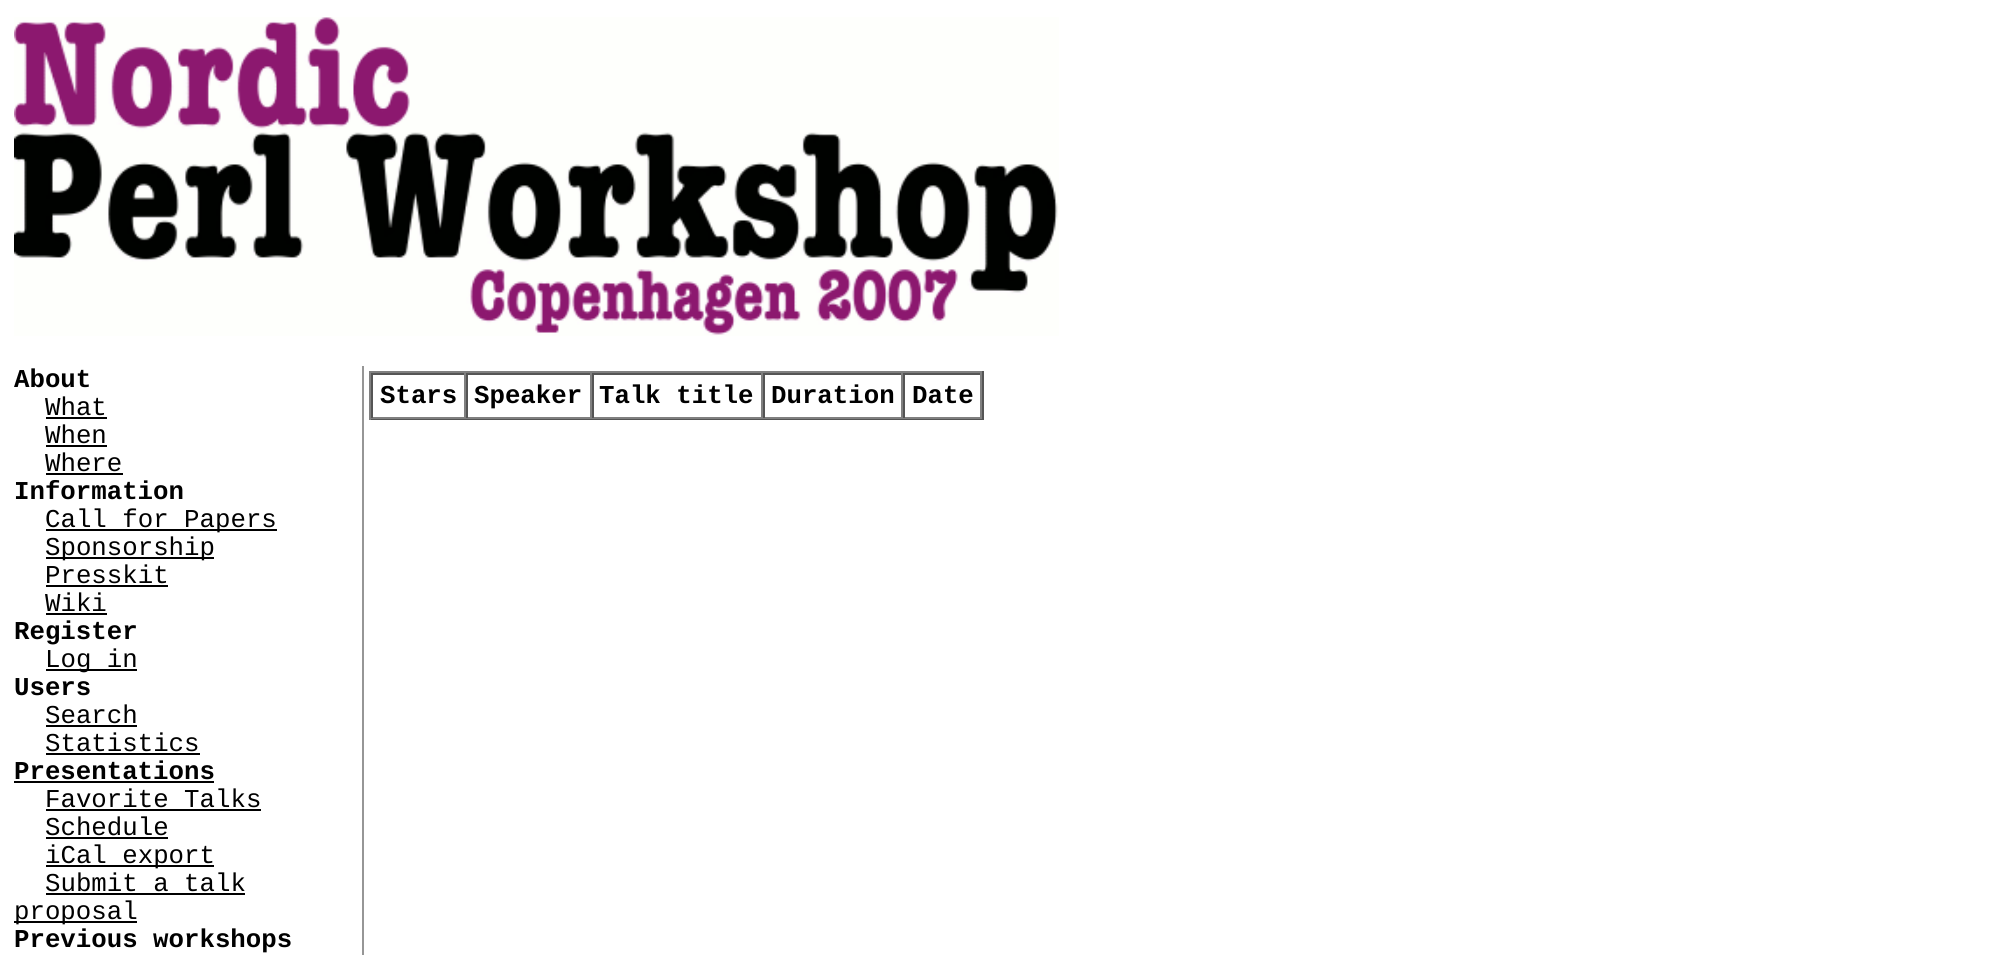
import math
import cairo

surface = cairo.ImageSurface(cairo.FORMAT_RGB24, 2008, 955)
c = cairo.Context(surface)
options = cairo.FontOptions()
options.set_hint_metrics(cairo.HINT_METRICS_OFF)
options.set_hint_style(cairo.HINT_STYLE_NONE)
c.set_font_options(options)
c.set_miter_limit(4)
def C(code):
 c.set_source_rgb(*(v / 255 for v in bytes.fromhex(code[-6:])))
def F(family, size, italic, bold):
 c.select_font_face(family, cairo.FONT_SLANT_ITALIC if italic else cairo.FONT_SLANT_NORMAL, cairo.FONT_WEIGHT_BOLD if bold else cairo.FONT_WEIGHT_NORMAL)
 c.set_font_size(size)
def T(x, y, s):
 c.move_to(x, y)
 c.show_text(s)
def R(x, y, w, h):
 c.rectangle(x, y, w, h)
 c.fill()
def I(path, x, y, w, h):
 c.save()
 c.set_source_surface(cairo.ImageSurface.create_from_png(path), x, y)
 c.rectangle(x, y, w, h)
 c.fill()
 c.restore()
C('ffffff')
c.paint()
I('1.png',14,17,1045,319)
F('Liberation Mono',25.75,0,1)
C('000000')
T(14,387,'About')
F('Liberation Mono',25.75,0,0)
T(45,415,'What')
R(46,417,61,2)
T(45,443,'When')
R(46,445,61,2)
T(45,471,'Where')
R(46,473,77,2)
F('Liberation Mono',25.75,0,1)
T(14,499,'Information')
R(46,529,231,2)
F('Liberation Mono',25.75,0,0)
T(45,527,'Call for Papers')
R(46,557,168,2)
T(45,555,'Sponsorship')
T(45,583,'Presskit')
R(46,585,122,2)
T(45,611,'Wiki')
R(46,613,61,2)
F('Liberation Mono',25.75,0,1)
T(14,639,'Register')
R(46,669,91,2)
F('Liberation Mono',25.75,0,0)
T(45,667,'Log in')
F('Liberation Mono',25.75,0,1)
T(14,695,'Users')
F('Liberation Mono',25.75,0,0)
T(45,723,'Search')
R(46,725,91,2)
T(45,751,'Statistics')
R(46,753,154,2)
F('Liberation Mono',25.75,0,1)
T(14,779,'Presentations')
R(14,781,200,2)
F('Liberation Mono',25.75,0,0)
T(45,807,'Favorite Talks')
R(46,809,215,2)
T(45,835,'Schedule')
R(46,837,122,2)
R(46,865,168,2)
T(45,863,'iCal export')
T(45,891,'Submit a talk')
R(46,893,199,2)
R(14,921,123,2)
T(14,919,'proposal')
F('Liberation Mono',25.75,0,1)
T(14,947,'Previous workshops')
C('969696')
R(362,366,2,589)
C('808080')
R(369,371,615,2)
C('555555')
R(982,371,2,49)
R(369,418,615,2)
C('808080')
R(369,371,2,49)
C('555555')
R(371,373,611,2)
C('808080')
R(464,373,2,45)
R(371,417,95,2)
C('555555')
R(371,373,2,45)
C('000000')
T(380,403,'Stars')
C('808080')
R(590,373,2,45)
R(466,417,126,2)
C('555555')
R(466,373,2,45)
C('000000')
T(474,403,'Speaker')
C('808080')
R(761,373,2,45)
R(592,417,171,2)
C('555555')
R(592,373,2,45)
C('000000')
T(599,403,'Talk title')
C('808080')
R(901,373,2,45)
R(763,417,140,2)
C('555555')
R(763,373,2,45)
C('000000')
T(771,403,'Duration')
C('808080')
R(980,373,2,45)
R(903,417,79,2)
C('555555')
R(903,373,2,45)
C('000000')
T(912,403,'Date')
surface.write_to_png('o.png')
